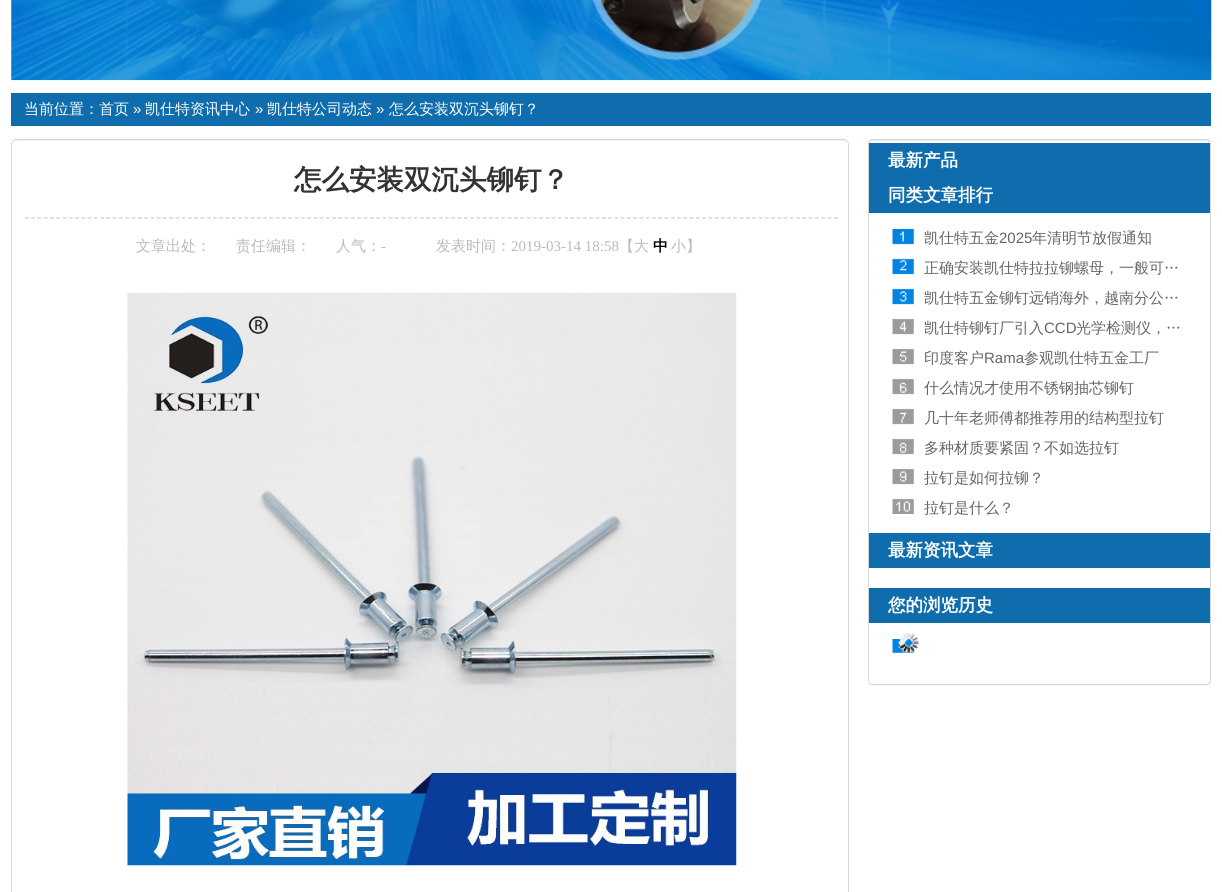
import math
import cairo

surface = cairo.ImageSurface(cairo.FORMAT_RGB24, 1222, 892)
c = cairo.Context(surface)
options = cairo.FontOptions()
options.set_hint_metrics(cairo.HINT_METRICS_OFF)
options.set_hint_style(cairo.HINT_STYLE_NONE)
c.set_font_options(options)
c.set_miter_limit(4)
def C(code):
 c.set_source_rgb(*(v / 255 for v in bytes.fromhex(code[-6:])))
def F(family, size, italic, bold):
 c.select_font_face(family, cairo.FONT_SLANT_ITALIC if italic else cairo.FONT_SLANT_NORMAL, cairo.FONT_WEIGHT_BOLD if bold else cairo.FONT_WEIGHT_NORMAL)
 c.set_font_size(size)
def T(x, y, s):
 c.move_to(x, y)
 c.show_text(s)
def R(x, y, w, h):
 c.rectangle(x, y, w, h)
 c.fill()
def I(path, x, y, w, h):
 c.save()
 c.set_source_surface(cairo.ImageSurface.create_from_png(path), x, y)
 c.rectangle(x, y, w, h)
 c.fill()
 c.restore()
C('ffffff')
c.paint()
I('1.png',11,0,1201,81)
C('0f6dad')
R(11,93,1200,33)
F('WenQuanYi Zen Hei Medium',15,0,0)
C('ffffff')
T(24,114,'当前位置：首页')
F('Liberation Sans',15,0,0)
T(133,114,'»')
F('WenQuanYi Zen Hei Medium',15,0,0)
T(145,114,'凯仕特资讯中心')
F('Liberation Sans',15,0,0)
T(255,114,'»')
F('WenQuanYi Zen Hei Medium',15,0,0)
T(267,114,'凯仕特公司动态')
F('Liberation Sans',15,0,0)
T(376,114,'»')
F('WenQuanYi Zen Hei Medium',15,0,0)
T(389,114,'怎么安装双沉头铆钉？')
I('2.png',11,139,838,4)
C('d5d5d5')
R(848,143,1,749)
R(11,143,1,749)
c.new_path()
c.move_to(25,218)
c.line_to(837.5,218)
C('cccccc')
c.set_line_width(1.2)
c.set_dash([3.75,2.52])
c.stroke()
F('WenQuanYi Zen Hei',27.5,0,1)
C('333333')
T(294,189,'怎么安装双沉头铆钉？')
F('WenQuanYi Zen Hei Medium',15,0,0)
C('bcbbbb')
T(136,251,'文章出处：')
T(236,251,'责任编辑：')
T(336,251,'人气：')
F('Liberation Serif',15,0,0)
T(381,251,'-')
F('WenQuanYi Zen Hei Medium',15,0,0)
T(436,251,'发表时间：')
F('Liberation Serif',15,0,0)
T(511,251,'2019-03-14 18:58')
F('WenQuanYi Zen Hei Medium',15,0,0)
T(619,251,'【大')
F('WenQuanYi Zen Hei',15,0,1)
C('000000')
T(653,251,'中')
F('WenQuanYi Zen Hei Medium',15,0,0)
C('bcbbbb')
T(671,251,'小】')
I('3.png',127,292,610,574)
I('4.png',867,139,344,4)
C('d5d5d5')
R(1210,143,1,538)
R(868,143,1,538)
C('0f6dad')
R(869,143,341,70)
F('WenQuanYi Zen Hei',17.5,0,1)
C('ffffff')
T(888,166,'最新产品')
T(888,201,'同类文章排行')
I('5.png',892,229,22,285)
F('WenQuanYi Zen Hei Medium',15,0,0)
C('666666')
T(924,243,'凯仕特五金')
F('Liberation Sans',15,0,0)
T(999,243,'2025')
F('WenQuanYi Zen Hei Medium',15,0,0)
T(1032,243,'年清明节放假通知')
T(924,273,'正确安装凯仕特拉拉铆螺母，一般可…')
T(924,303,'凯仕特五金铆钉远销海外，越南分公…')
T(924,333,'凯仕特铆钉厂引入')
F('Liberation Sans',15,0,0)
T(1044,333,'CCD')
F('WenQuanYi Zen Hei Medium',15,0,0)
T(1076,333,'光学检测仪，…')
T(924,363,'印度客户')
F('Liberation Sans',15,0,0)
T(984,363,'Rama')
F('WenQuanYi Zen Hei Medium',15,0,0)
T(1024,363,'参观凯仕特五金工厂')
T(924,393,'什么情况才使用不锈钢抽芯铆钉')
T(924,423,'几十年老师傅都推荐用的结构型拉钉')
T(924,453,'多种材质要紧固？不如选拉钉')
T(924,483,'拉钉是如何拉铆？')
T(924,513,'拉钉是什么？')
C('0f6dad')
R(869,533,341,35)
F('WenQuanYi Zen Hei',17.5,0,1)
C('ffffff')
T(888,556,'最新资讯文章')
C('0f6dad')
R(869,588,341,35)
C('ffffff')
T(888,611,'您的浏览历史')
I('6.png',892,639,22,14)
I('7.png',898,633,21,20)
I('8.png',867,681,344,5)
surface.write_to_png('o.png')
